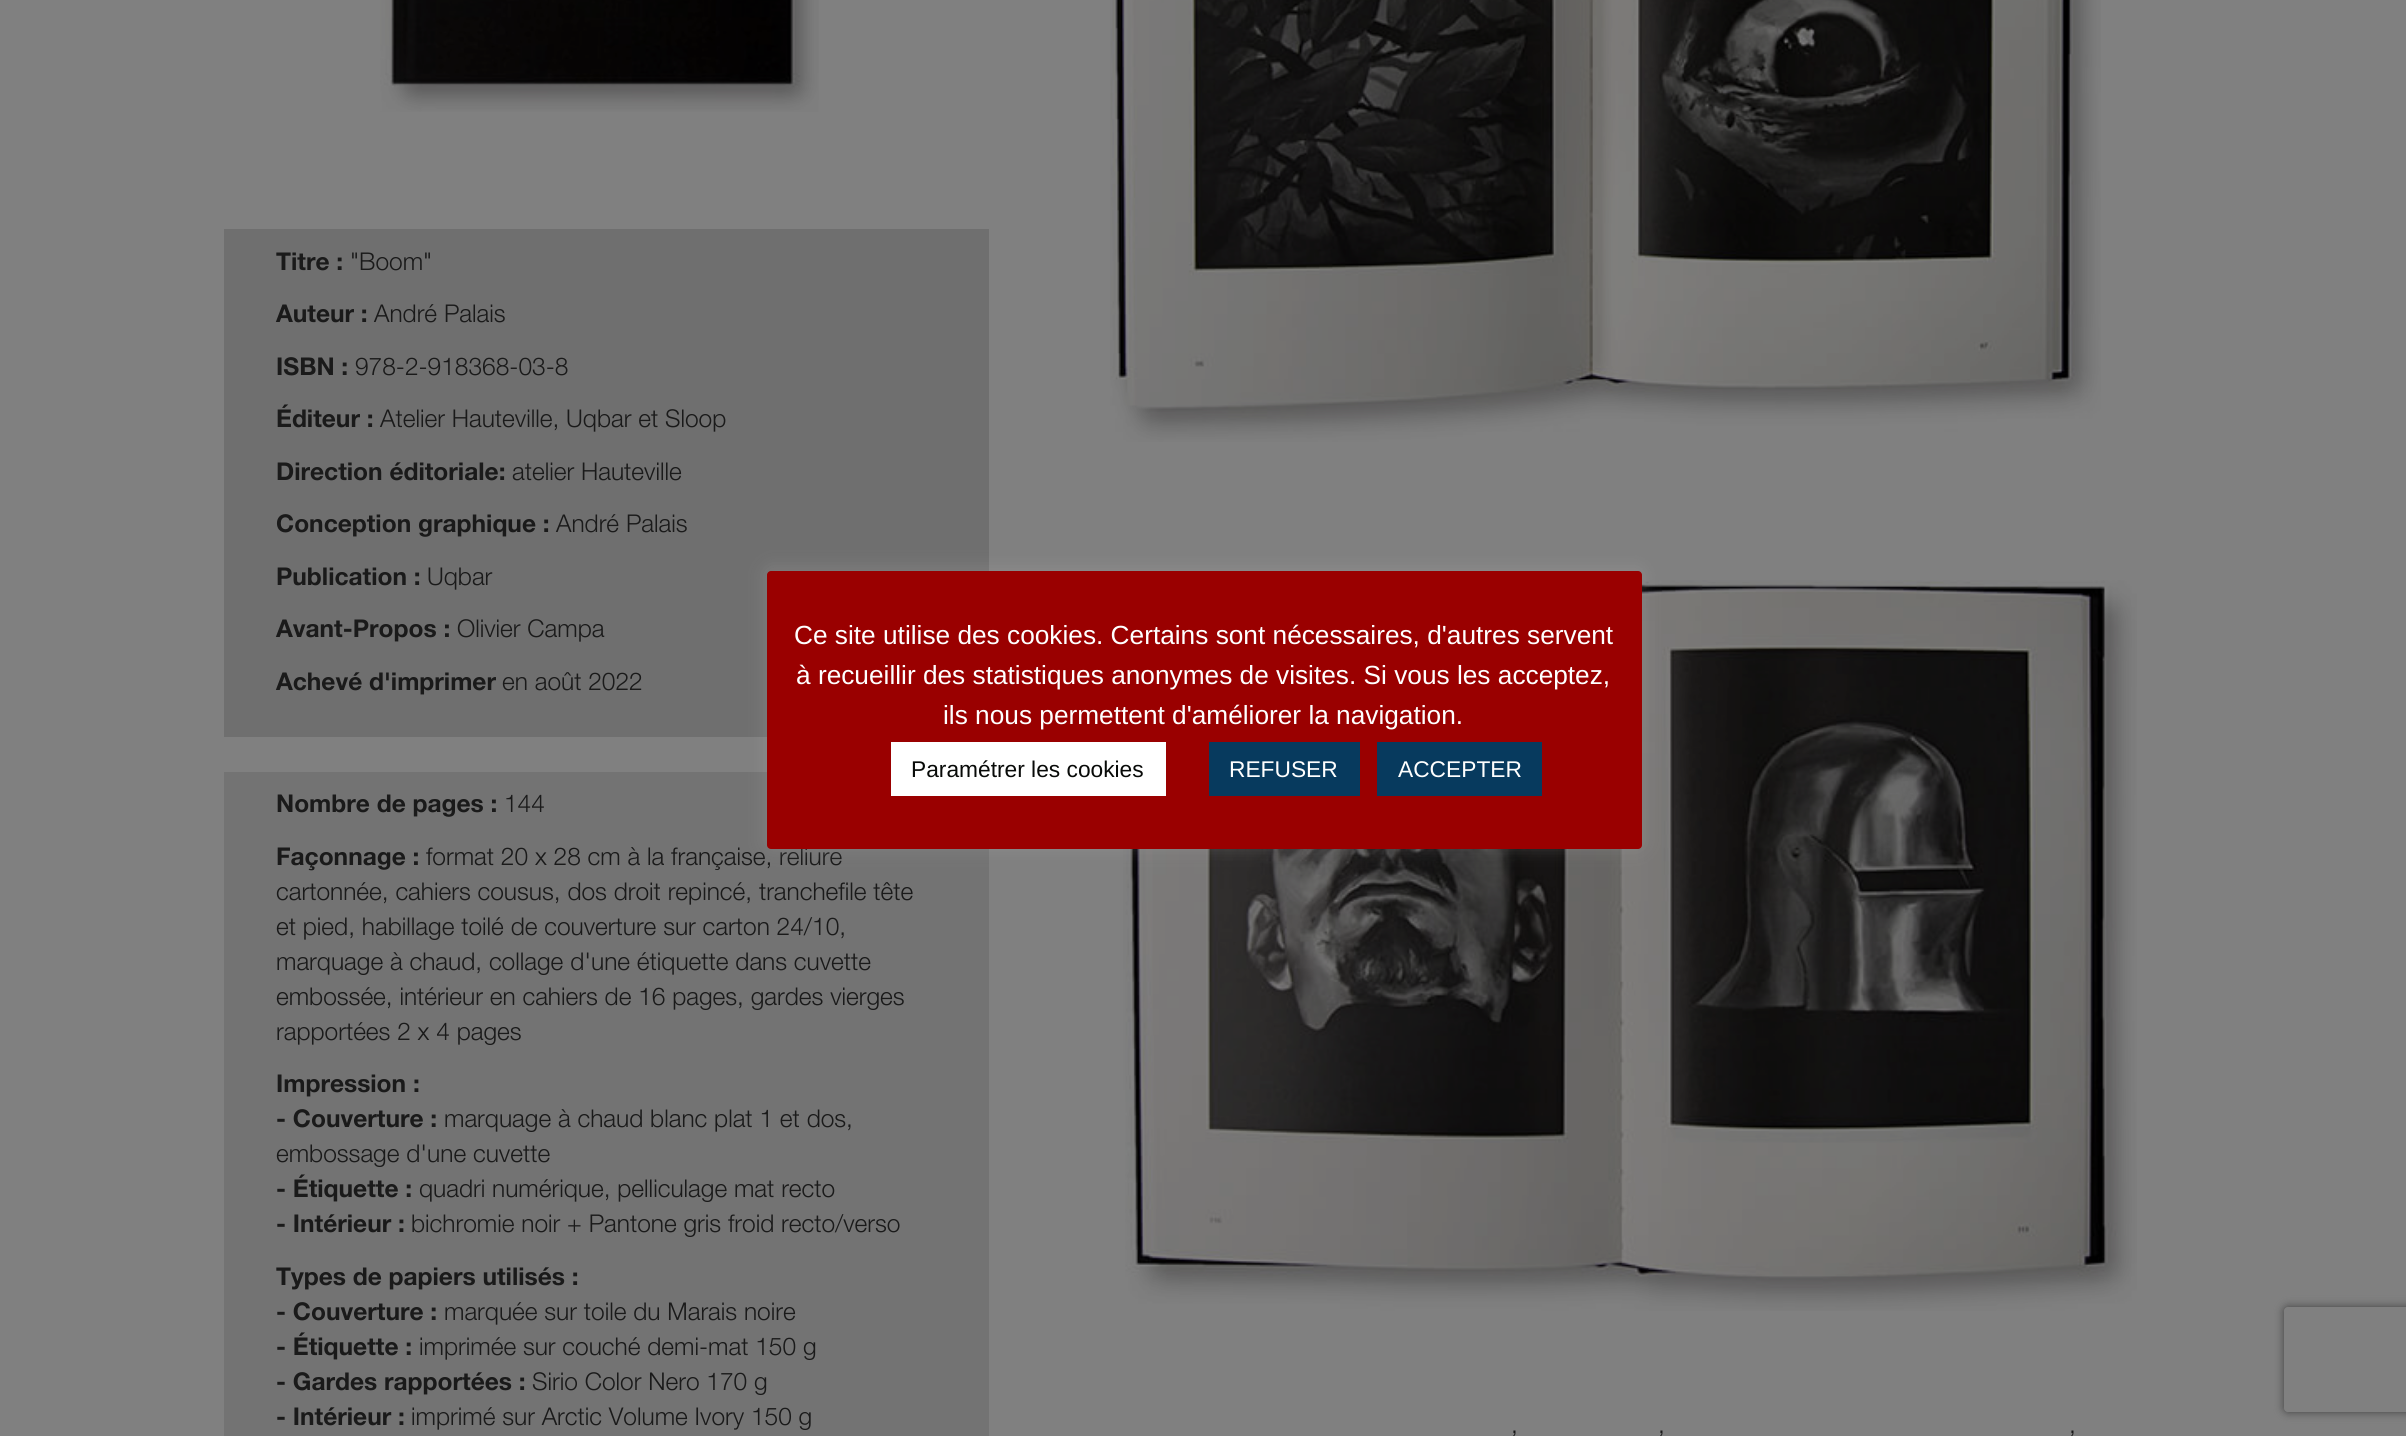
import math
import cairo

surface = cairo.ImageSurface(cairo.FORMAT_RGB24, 2406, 1436)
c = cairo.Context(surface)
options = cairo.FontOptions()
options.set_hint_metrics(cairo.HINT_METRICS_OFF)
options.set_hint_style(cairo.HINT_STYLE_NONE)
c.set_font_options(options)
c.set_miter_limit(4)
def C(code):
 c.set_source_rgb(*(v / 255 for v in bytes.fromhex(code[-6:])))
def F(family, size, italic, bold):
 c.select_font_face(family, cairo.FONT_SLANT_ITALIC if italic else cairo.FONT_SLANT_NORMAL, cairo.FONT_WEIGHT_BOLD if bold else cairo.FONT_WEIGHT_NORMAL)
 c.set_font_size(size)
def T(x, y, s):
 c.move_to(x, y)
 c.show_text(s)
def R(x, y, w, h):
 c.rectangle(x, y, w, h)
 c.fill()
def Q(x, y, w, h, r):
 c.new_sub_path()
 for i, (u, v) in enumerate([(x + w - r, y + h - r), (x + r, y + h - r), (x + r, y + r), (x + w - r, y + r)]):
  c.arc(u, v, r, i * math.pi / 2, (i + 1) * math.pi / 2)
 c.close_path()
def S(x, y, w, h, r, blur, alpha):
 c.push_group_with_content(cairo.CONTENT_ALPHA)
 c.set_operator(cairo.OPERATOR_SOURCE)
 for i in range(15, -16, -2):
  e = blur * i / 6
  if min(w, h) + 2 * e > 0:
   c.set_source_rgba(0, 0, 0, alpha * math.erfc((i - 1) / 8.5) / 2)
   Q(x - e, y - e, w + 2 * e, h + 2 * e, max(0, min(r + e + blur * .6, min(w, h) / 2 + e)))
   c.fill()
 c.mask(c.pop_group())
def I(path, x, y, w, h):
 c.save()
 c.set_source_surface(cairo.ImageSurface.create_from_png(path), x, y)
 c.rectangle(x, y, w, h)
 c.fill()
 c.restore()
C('808080')
c.paint()
I('1.png',380,0,439,112)
C('6f6f6f')
R(224,229,765,508)
F('Helvetica Neue',24.5,0,1)
C('1a1a1a')
T(276,270,'Titre :')
F('Helvetica Neue Light',24.5,0,0)
T(350,270,'"Boom"')
F('Helvetica Neue',24.5,0,1)
T(276,322,'Auteur :')
F('Helvetica Neue Light',24.5,0,0)
T(374,322,'André Palais')
F('Helvetica Neue',24.5,0,1)
T(276,375,'ISBN :')
F('Helvetica Neue Light',24.5,0,0)
T(355,375,'978-2-918368-03-8')
F('Helvetica Neue',24.5,0,1)
T(276,427,'Éditeur :')
F('Helvetica Neue Light',24.5,0,0)
T(380,427,'Atelier Hauteville, Uqbar et Sloop')
F('Helvetica Neue',24.5,0,1)
T(276,480,'Direction éditoriale:')
F('Helvetica Neue Light',24.5,0,0)
T(512,480,'atelier Hauteville')
F('Helvetica Neue',24.5,0,1)
T(276,532,'Conception graphique :')
F('Helvetica Neue Light',24.5,0,0)
T(556,532,'André Palais')
F('Helvetica Neue',24.5,0,1)
T(276,585,'Publication :')
F('Helvetica Neue Light',24.5,0,0)
T(427,585,'Uqbar')
F('Helvetica Neue',24.5,0,1)
T(276,637,'Avant-Propos :')
F('Helvetica Neue Light',24.5,0,0)
T(457,637,'Olivier Campa')
F('Helvetica Neue',24.5,0,1)
T(276,690,'Achevé d\'imprimer')
F('Helvetica Neue Light',24.5,0,0)
T(502,690,'en août 2022')
C('737373')
R(224,772,765,664)
F('Helvetica Neue',24.5,0,1)
C('1a1a1a')
T(276,812,'Nombre de pages :')
F('Helvetica Neue Light',24.5,0,0)
T(504,812,'144')
F('Helvetica Neue',24.5,0,1)
T(276,865,'Façonnage :')
F('Helvetica Neue Light',24.5,0,0)
T(426,865,'format 20 x 28 cm à la française, reliure')
T(276,900,'cartonnée, cahiers cousus, dos droit repincé, tranchefile tête')
T(276,935,'et pied, habillage toilé de couverture sur carton 24/10,')
T(276,970,'marquage à chaud, collage d\'une étiquette dans cuvette')
T(276,1005,'embossée, intérieur en cahiers de 16 pages, gardes vierges')
T(276,1040,'rapportées 2 x 4 pages')
F('Helvetica Neue',24.5,0,1)
T(276,1092,'Impression :')
T(276,1127,'- Couverture :')
F('Helvetica Neue Light',24.5,0,0)
T(444,1127,'marquage à chaud blanc plat 1 et dos,')
T(276,1162,'embossage d\'une cuvette')
F('Helvetica Neue',24.5,0,1)
T(276,1197,'- Étiquette :')
F('Helvetica Neue Light',24.5,0,0)
T(419,1197,'quadri numérique, pelliculage mat recto')
F('Helvetica Neue',24.5,0,1)
T(276,1232,'- Intérieur :')
F('Helvetica Neue Light',24.5,0,0)
T(411,1232,'bichromie noir + Pantone gris froid recto/verso')
F('Helvetica Neue',24.5,0,1)
T(276,1285,'Types de papiers utilisés :')
T(276,1320,'- Couverture :')
F('Helvetica Neue Light',24.5,0,0)
T(444,1320,'marquée sur toile du Marais noire')
F('Helvetica Neue',24.5,0,1)
T(276,1355,'- Étiquette :')
F('Helvetica Neue Light',24.5,0,0)
T(419,1355,'imprimée sur couché demi-mat 150 g')
F('Helvetica Neue',24.5,0,1)
T(276,1390,'- Gardes rapportées :')
F('Helvetica Neue Light',24.5,0,0)
T(532,1390,'Sirio Color Nero 170 g')
F('Helvetica Neue',24.5,0,1)
T(276,1425,'- Intérieur :')
F('Helvetica Neue Light',24.5,0,0)
T(411,1425,'imprimé sur Arctic Volume Ivory 150 g')
I('2.png',1110,0,991,442)
I('3.png',1123,580,1014,731)
T(1511,1448,'’')
T(1658,1448,'’')
T(2069,1448,'’')
C('acabab')
S(767,569,875,278,4,9,.3)
C('9a0000')
Q(767,571,875,278,4)
c.fill()
F('Liberation Sans',26.25,0,0)
C('ffffff')
T(794,644,'Ce site utilise des cookies. Certains sont nécessaires, d\'autres servent')
T(796,684,'à recueillir des statistiques anonymes de visites. Si vous les acceptez,')
T(943,724,'ils nous permettent d\'améliorer la navigation.')
R(891,742,275,54)
F('Liberation Sans',22.75,0,0)
C('080a08')
T(911,777,'Paramétrer les cookies')
C('073a5e')
R(1209,742,151,54)
C('ffffff')
T(1229,777,'REFUSER')
C('073a5e')
R(1377,742,165,54)
C('ffffff')
T(1398,777,'ACCEPTER')
c.save()
c.set_fill_rule(cairo.FILL_RULE_EVEN_ODD)
c.new_path()
c.move_to(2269,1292)
c.line_to(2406,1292)
c.line_to(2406,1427)
c.line_to(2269,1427)
c.close_path()
c.move_to(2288,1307)
c.line_to(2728,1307)
c.curve_to(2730,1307,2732,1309,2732,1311)
c.line_to(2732,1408)
c.curve_to(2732,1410,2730,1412,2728,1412)
c.line_to(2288,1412)
c.curve_to(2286,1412,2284,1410,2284,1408)
c.line_to(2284,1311)
c.curve_to(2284,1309,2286,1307,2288,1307)
c.close_path()
c.clip()
C('404040')
S(2284,1307,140,105,4,4.5,1)
c.restore()
surface.write_to_png('o.png')
